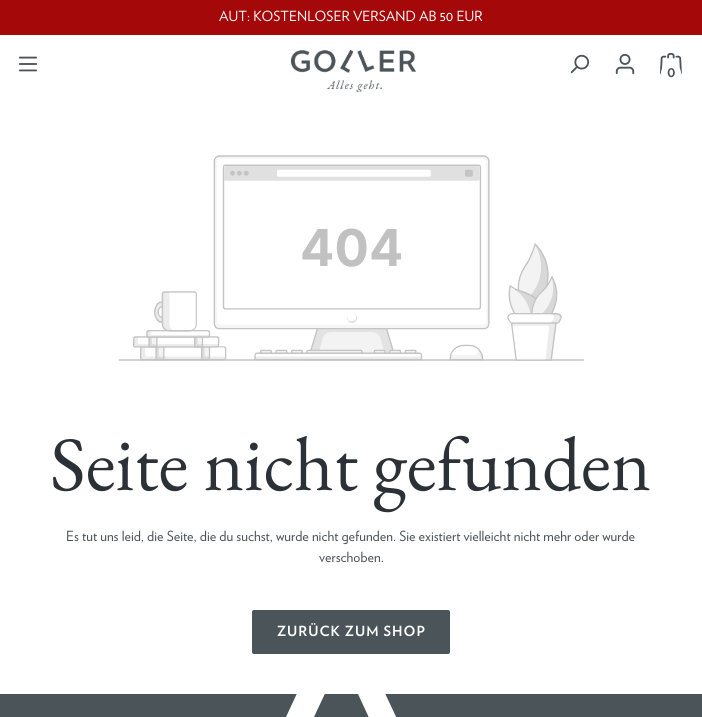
import math
import cairo

surface = cairo.ImageSurface(cairo.FORMAT_RGB24, 702, 717)
c = cairo.Context(surface)
options = cairo.FontOptions()
options.set_hint_metrics(cairo.HINT_METRICS_OFF)
options.set_hint_style(cairo.HINT_STYLE_NONE)
c.set_font_options(options)
c.set_miter_limit(4)
def C(code):
 c.set_source_rgb(*(v / 255 for v in bytes.fromhex(code[-6:])))
def F(family, size, italic, bold):
 c.select_font_face(family, cairo.FONT_SLANT_ITALIC if italic else cairo.FONT_SLANT_NORMAL, cairo.FONT_WEIGHT_BOLD if bold else cairo.FONT_WEIGHT_NORMAL)
 c.set_font_size(size)
def T(x, y, s):
 c.move_to(x, y)
 c.show_text(s)
def L(x, y, s, letter, word):
 c.move_to(x, y)
 for ch in s:
  c.show_text(ch)
  c.rel_move_to(letter + word * (ch == ' '), 0)
def R(x, y, w, h):
 c.rectangle(x, y, w, h)
 c.fill()
def Q(x, y, w, h, r):
 c.new_sub_path()
 for i, (u, v) in enumerate([(x + w - r, y + h - r), (x + r, y + h - r), (x + r, y + r), (x + w - r, y + r)]):
  c.arc(u, v, r, i * math.pi / 2, (i + 1) * math.pi / 2)
 c.close_path()
def I(path, x, y, w, h):
 c.save()
 c.set_source_surface(cairo.ImageSurface.create_from_png(path), x, y)
 c.rectangle(x, y, w, h)
 c.fill()
 c.restore()
C('ffffff')
c.paint()
C('a40808')
R(0,0,702,35)
F('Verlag',14,0,0)
C('ffffff')
T(219,21,'AUT: KOSTENLOSER VERSAND AB 50 EUR')
I('1.png',18,56,20,16)
I('2.png',291,50,125,42)
I('3.png',570,54,20,20)
I('4.png',615,53,20,22)
I('5.png',660,53,22,22)
c.arc(671,73,10,0,2 * math.pi)
c.fill()
F('Verlag',15,0,1)
C('4c545a')
T(667,77,'0')
I('6.png',118,155,466,206)
F('EB Garamond',76.75,0,0)
C('2b3136')
T(50,490,'Seite nicht gefunden')
F('Verlag',14,0,0)
C('4c545a')
T(66,541,'Es tut uns leid, die Seite, die du suchst, wurde nicht gefunden. Sie existiert vielleicht nicht mehr oder wurde')
T(319,562,'verschoben.')
C('4b5458')
Q(252,610,198,44,2)
c.fill()
F('Verlag',14,0,1)
C('ffffff')
L(277,636,'ZURÜCK ZUM SHOP',1,0)
C('4b5458')
R(0,694,702,23)
C('ffffff')
c.new_path()
c.move_to(306,674)
c.line_to(329,685)
c.line_to(276,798)
c.line_to(253,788)
c.close_path()
c.fill()
c.new_path()
c.move_to(346,668)
c.line_to(368,657)
c.line_to(436,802)
c.line_to(413,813)
c.close_path()
c.fill()
surface.write_to_png('o.png')
